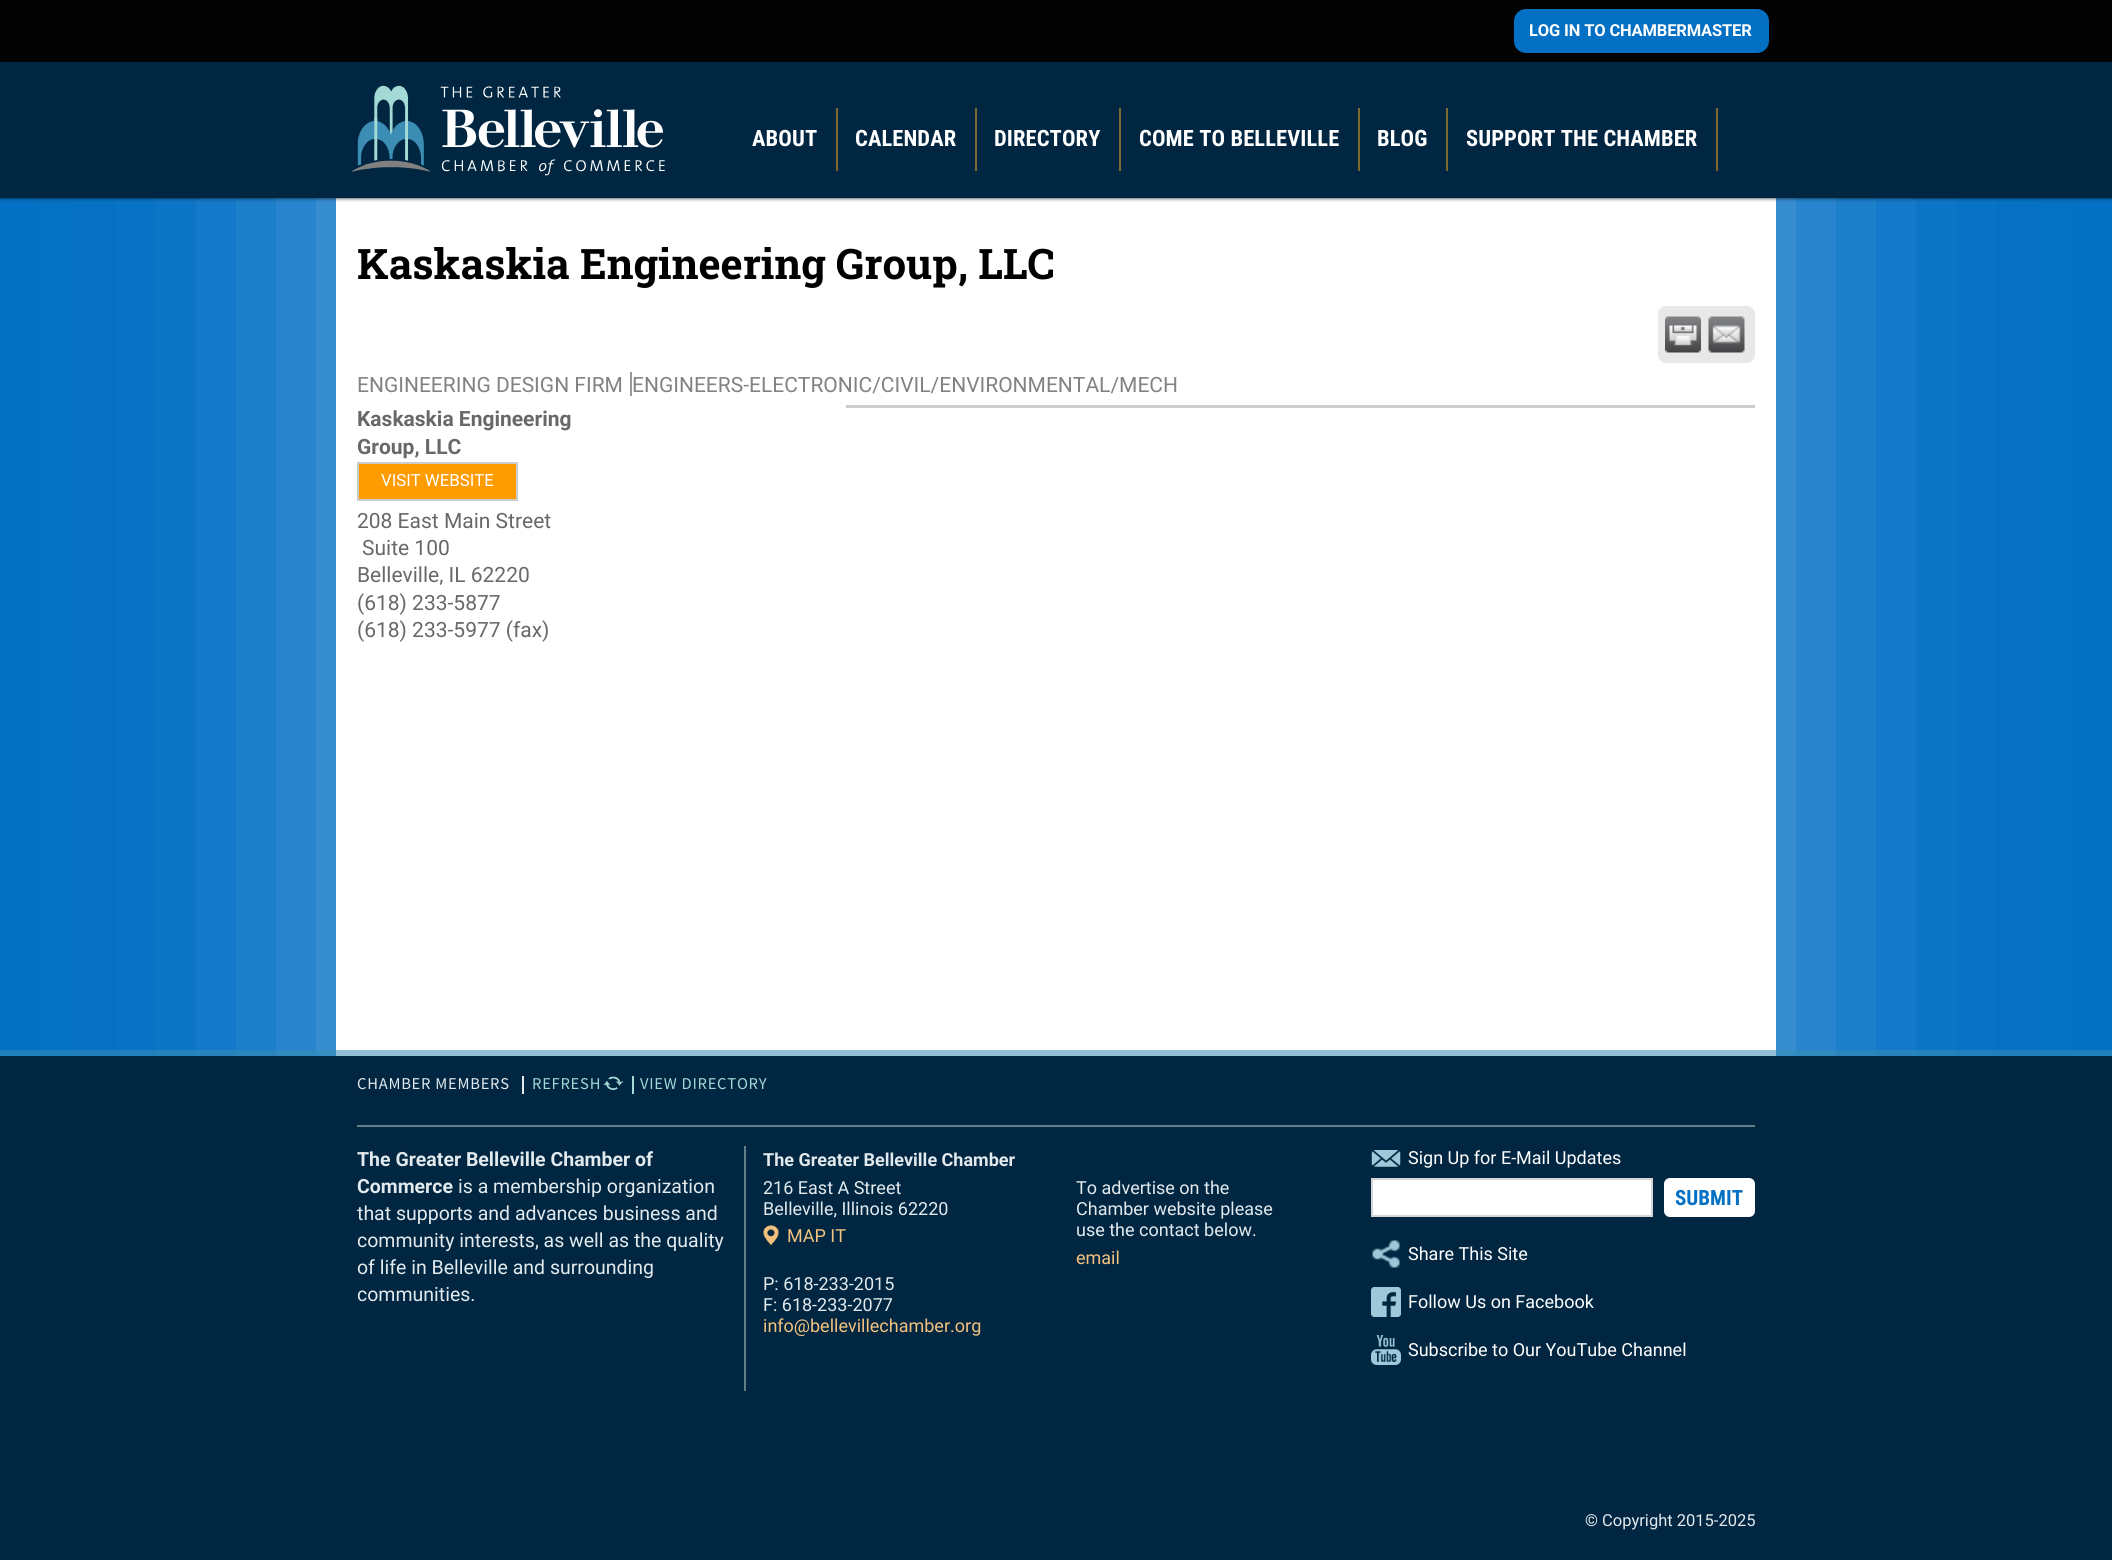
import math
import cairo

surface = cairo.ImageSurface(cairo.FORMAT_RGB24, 2112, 1560)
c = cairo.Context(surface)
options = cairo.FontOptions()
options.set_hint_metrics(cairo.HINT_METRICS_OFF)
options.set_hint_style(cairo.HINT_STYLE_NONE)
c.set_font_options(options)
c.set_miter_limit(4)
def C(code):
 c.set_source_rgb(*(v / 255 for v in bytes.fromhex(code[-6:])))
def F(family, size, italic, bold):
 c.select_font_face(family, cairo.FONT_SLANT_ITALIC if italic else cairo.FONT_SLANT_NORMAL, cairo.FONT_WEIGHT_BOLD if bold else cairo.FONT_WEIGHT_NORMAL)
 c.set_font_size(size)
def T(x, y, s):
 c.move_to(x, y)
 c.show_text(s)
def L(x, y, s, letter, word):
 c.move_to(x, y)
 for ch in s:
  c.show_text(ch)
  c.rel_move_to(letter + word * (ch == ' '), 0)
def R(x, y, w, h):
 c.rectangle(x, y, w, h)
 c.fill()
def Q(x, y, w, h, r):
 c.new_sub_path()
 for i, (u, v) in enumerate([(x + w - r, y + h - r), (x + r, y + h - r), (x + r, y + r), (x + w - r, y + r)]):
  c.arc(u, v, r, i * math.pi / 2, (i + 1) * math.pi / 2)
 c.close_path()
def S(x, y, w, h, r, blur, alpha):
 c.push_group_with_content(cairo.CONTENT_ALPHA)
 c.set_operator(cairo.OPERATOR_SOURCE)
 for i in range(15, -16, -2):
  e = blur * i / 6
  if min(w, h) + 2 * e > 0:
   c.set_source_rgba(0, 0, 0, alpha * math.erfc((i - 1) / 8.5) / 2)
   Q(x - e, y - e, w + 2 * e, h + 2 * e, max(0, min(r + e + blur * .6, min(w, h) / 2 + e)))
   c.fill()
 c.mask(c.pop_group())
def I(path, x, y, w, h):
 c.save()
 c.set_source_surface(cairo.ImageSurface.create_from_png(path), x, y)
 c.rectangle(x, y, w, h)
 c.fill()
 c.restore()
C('0470c4')
c.paint()
C('ffffff')
S(336,0,1440,1560,0,120,.4)
C('ffffff')
R(336,198,1440,858)
C('031822')
S(0,0,2112,198,0,2,1)
C('002641')
R(0,62,2112,136)
C('020202')
R(0,0,2112,62)
C('0470c4')
Q(1514,9,255,44,12)
c.fill()
F('Roboto',16.5,0,1)
C('ffffff')
L(1529,36,'LOG IN TO CHAMBERMASTER',-.15,0)
I('1.png',352,85,313,91)
F('Roboto Condensed',22.5,0,1)
L(752,146,'ABOUT',.1,0)
C('7c692e')
R(836,108,2,63)
C('ffffff')
L(855,146,'CALENDAR',.1,0)
C('7c692e')
R(975,108,2,63)
C('ffffff')
L(994,146,'DIRECTORY',.1,0)
C('7c692e')
R(1119,108,2,63)
C('ffffff')
L(1139,146,'COME TO BELLEVILLE',.1,0)
C('7c692e')
R(1358,108,2,63)
C('ffffff')
L(1377,146,'BLOG',.1,0)
C('7c692e')
R(1446,108,2,63)
C('ffffff')
L(1466,146,'SUPPORT THE CHAMBER',.1,0)
C('7c692e')
R(1716,108,2,63)
F('Roboto Slab',42,0,1)
C('000000')
T(357,279,'Kaskaskia Engineering Group, LLC')
C('e8e8e8')
Q(1658,306,97,57,8)
c.fill()
I('2.png',1665,316,36,37)
I('3.png',1708,316,37,37)
F('Roboto',21,0,0)
C('828282')
T(357,392,'ENGINEERING DESIGN FIRM')
T(632,392,'ENGINEERS-ELECTRONIC/CIVIL/ENVIRONMENTAL/MECH')
C('999999')
R(630,372,2,24)
C('cccccc')
R(846,405,909,3)
F('Roboto',21,0,1)
C('686868')
T(357,426,'Kaskaskia Engineering')
T(357,454,'Group, LLC')
C('ff9c00')
c.rectangle(358,463,159,37)
c.fill_preserve()
C('cccccc')
c.stroke()
F('Roboto',16.75,0,0)
C('ffffff')
T(381,486,'VISIT WEBSITE')
F('Roboto',21,0,0)
C('686868')
T(357,528,'208 East Main Street')
T(362,555,'Suite 100')
T(357,582,'Belleville, IL 62220')
T(357,610,'(618) 233-5877')
T(357,637,'(618) 233-5977 (fax)')
C('002641')
R(0,1056,2112,504)
c.set_source_rgba(0.22,0.553,0.706,0.55)
R(0,1050,2112,6)
C('627f86')
R(357,1125,1398,2)
F('Source Sans Pro',16.5,0,0)
C('e2eaee')
L(357,1089,'CHAMBER MEMBERS',.75,0)
I('4.png',603,1076,21,14)
R(522,1076,2,18)
C('a3dad6')
L(532,1089,'REFRESH',.75,0)
R(632,1076,2,18)
L(640,1089,'VIEW DIRECTORY',.75,0)
F('Roboto',19.5,0,1)
C('e2eaee')
T(357,1166,'The Greater Belleville Chamber of')
T(357,1193,'Commerce')
F('Roboto',19.5,0,0)
T(458,1193,'is a membership organization')
T(357,1220,'that supports and advances business and')
T(357,1247,'community interests, as well as the quality')
T(357,1274,'of life in Belleville and surrounding')
T(357,1301,'communities.')
C('627f86')
R(744,1146,2,245)
F('Roboto',18,0,1)
C('e2eaee')
T(763,1166,'The Greater Belleville Chamber')
F('Roboto',18,0,0)
T(763,1194,'216 East A Street')
T(763,1215,'Belleville, Illinois 62220')
I('5.png',763,1225,16,20)
C('f3c27f')
T(787,1242,'MAP IT')
C('e2eaee')
T(763,1290,'P: 618-233-2015')
T(763,1311,'F: 618-233-2077')
C('f3c27f')
T(763,1332,'info@bellevillechamber.org')
C('e2eaee')
T(1076,1194,'To advertise on the')
T(1076,1215,'Chamber website please')
T(1076,1236,'use the contact below.')
C('f3c27f')
T(1076,1264,'email')
I('6.png',1371,1150,30,17)
C('ffffff')
T(1408,1164,'Sign Up for E-Mail Updates')
c.rectangle(1372,1179,280,37)
c.fill_preserve()
C('d7d5d5')
c.stroke()
C('ffffff')
Q(1664,1178,91,39,6)
c.fill()
F('Roboto Condensed',21,0,1)
C('0470c4')
T(1675,1205,'SUBMIT')
I('7.png',1372,1240,28,28)
F('Roboto',18,0,0)
C('ffffff')
T(1408,1260,'Share This Site')
I('8.png',1371,1287,30,30)
T(1408,1308,'Follow Us on Facebook')
I('9.png',1371,1335,30,30)
T(1408,1356,'Subscribe to Our YouTube Channel')
F('Roboto',16.5,0,0)
C('e2eaee')
T(1585,1526,'© Copyright 2015-2025')
surface.write_to_png('o.png')
